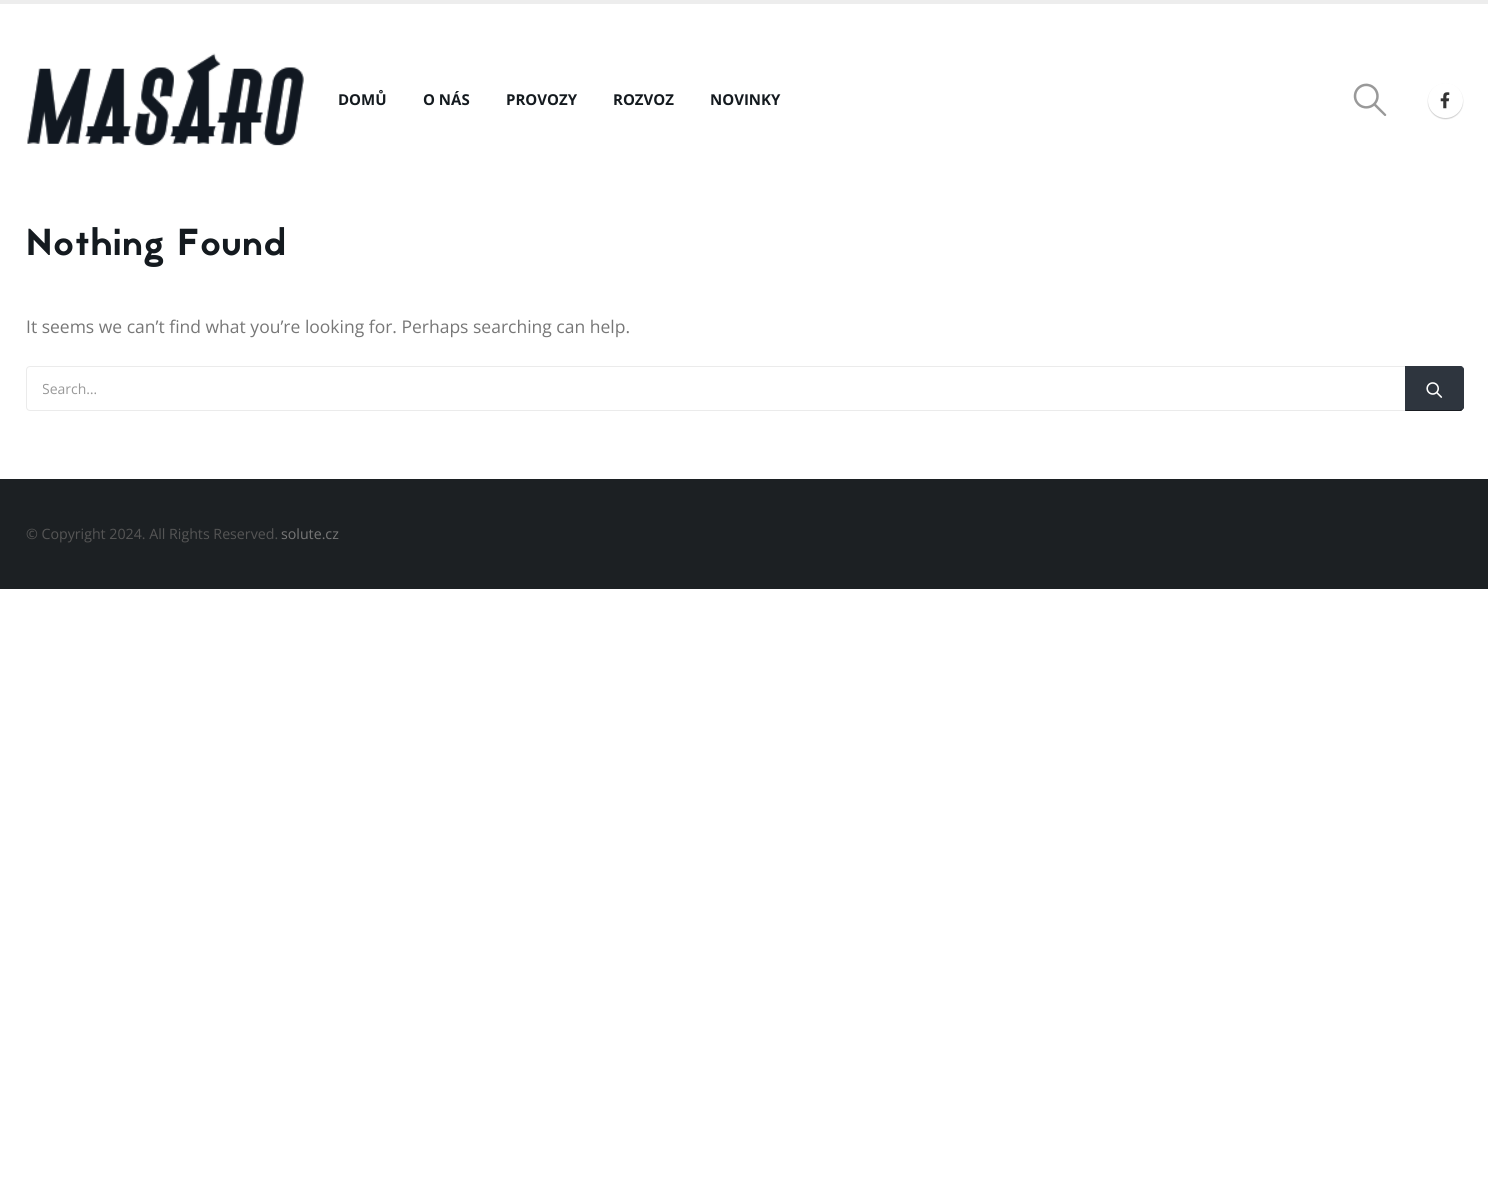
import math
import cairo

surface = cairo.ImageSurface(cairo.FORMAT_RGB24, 1488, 1179)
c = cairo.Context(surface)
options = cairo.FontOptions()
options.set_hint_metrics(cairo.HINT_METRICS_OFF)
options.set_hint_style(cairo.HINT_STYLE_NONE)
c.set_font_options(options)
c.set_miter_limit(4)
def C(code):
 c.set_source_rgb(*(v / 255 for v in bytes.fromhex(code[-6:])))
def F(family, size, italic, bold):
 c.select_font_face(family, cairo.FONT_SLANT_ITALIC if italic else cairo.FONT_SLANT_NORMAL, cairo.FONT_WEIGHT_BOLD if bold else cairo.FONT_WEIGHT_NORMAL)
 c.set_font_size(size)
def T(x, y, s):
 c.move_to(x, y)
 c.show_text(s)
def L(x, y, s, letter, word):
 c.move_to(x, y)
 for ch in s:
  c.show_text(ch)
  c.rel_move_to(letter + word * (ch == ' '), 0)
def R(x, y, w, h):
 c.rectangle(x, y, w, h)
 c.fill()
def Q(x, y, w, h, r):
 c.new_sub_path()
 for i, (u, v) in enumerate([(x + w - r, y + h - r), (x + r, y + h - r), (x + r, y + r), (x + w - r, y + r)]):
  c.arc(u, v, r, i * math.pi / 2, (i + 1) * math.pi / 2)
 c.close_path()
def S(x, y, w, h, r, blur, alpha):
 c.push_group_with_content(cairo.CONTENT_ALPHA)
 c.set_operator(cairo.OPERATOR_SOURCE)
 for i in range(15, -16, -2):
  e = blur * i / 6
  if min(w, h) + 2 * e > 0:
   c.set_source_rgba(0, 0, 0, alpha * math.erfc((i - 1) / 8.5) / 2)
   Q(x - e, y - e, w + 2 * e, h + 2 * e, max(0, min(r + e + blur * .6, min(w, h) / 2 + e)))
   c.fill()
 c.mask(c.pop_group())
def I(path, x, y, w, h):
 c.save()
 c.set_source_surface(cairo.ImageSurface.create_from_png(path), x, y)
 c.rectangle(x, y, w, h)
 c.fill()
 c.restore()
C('ffffff')
c.paint()
C('ededed')
R(0,0,1488,4)
I('1.png',27,53,277,93)
F('Open Sans',15,0,1)
C('141a1f')
T(338,105,'DOMŮ')
T(423,105,'O NÁS')
T(506,105,'PROVOZY')
T(613,105,'ROZVOZ')
T(710,105,'NOVINKY')
I('2.png',1353,83,34,33)
C('000000')
S(1428,84,35,35,17.5,.5,.2)
C('ffffff')
c.arc(1445.5,100.5,17.5,0,2 * math.pi)
c.fill()
I('3.png',1440,92,10,17)
F('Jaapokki',37.5,0,0)
C('141a1f')
L(26,255,'Nothing Found',1.25,0)
F('Open Sans',17.5,0,0)
C('777777')
T(26,333,'It seems we can’t find what you’re looking for. Perhaps searching can help.')
c.new_path()
c.move_to(30,366.5)
c.line_to(1405.5,366.5)
c.line_to(1405.5,410.5)
c.line_to(30,410.5)
c.curve_to(28,410.5,26.5,409,26.5,407)
c.line_to(26.5,370)
c.curve_to(26.5,368,28,366.5,30,366.5)
c.close_path()
C('ebebeb')
c.set_line_width(1)
c.stroke()
c.save()
c.rectangle(43,379,1347,19)
c.clip()
F('Open Sans',14,0,0)
C('999999')
T(42,394,'Search…')
c.restore()
C('2e353e')
c.new_path()
c.move_to(1405,366)
c.line_to(1459,366)
c.curve_to(1462,366,1464,368,1464,371)
c.line_to(1464,406)
c.curve_to(1464,409,1462,411,1459,411)
c.line_to(1405,411)
c.close_path()
c.fill()
c.new_path()
c.move_to(1405,366)
c.line_to(1461,366)
c.line_to(1463,367)
c.line_to(1461,369)
c.curve_to(1459,367,1413,368,1407,368)
c.close_path()
c.fill()
c.new_path()
c.move_to(1464,408)
c.line_to(1462,410)
c.line_to(1461,409)
c.curve_to(1463,406,1462,370,1461,369)
c.line_to(1463,367)
c.line_to(1464,369)
c.close_path()
c.fill()
C('191c21')
c.new_path()
c.move_to(1462,410)
c.curve_to(1462,411,1460,411,1459,411)
c.line_to(1405,411)
c.line_to(1406,410)
c.line_to(1460,410)
c.line_to(1461,409)
c.close_path()
c.fill()
C('2e353e')
c.new_path()
c.move_to(1406,368)
c.line_to(1407,368)
c.line_to(1405,366)
c.line_to(1405,411)
c.line_to(1406,410)
c.close_path()
c.fill()
I('4.png',1426,382,17,16)
C('1c2023')
R(0,479,1488,110)
F('Open Sans',14.2,0,0)
C('555555')
T(26,539,'© Copyright 2024. All Rights Reserved.')
C('777777')
T(281,539,'solute.cz')
surface.write_to_png('o.png')
